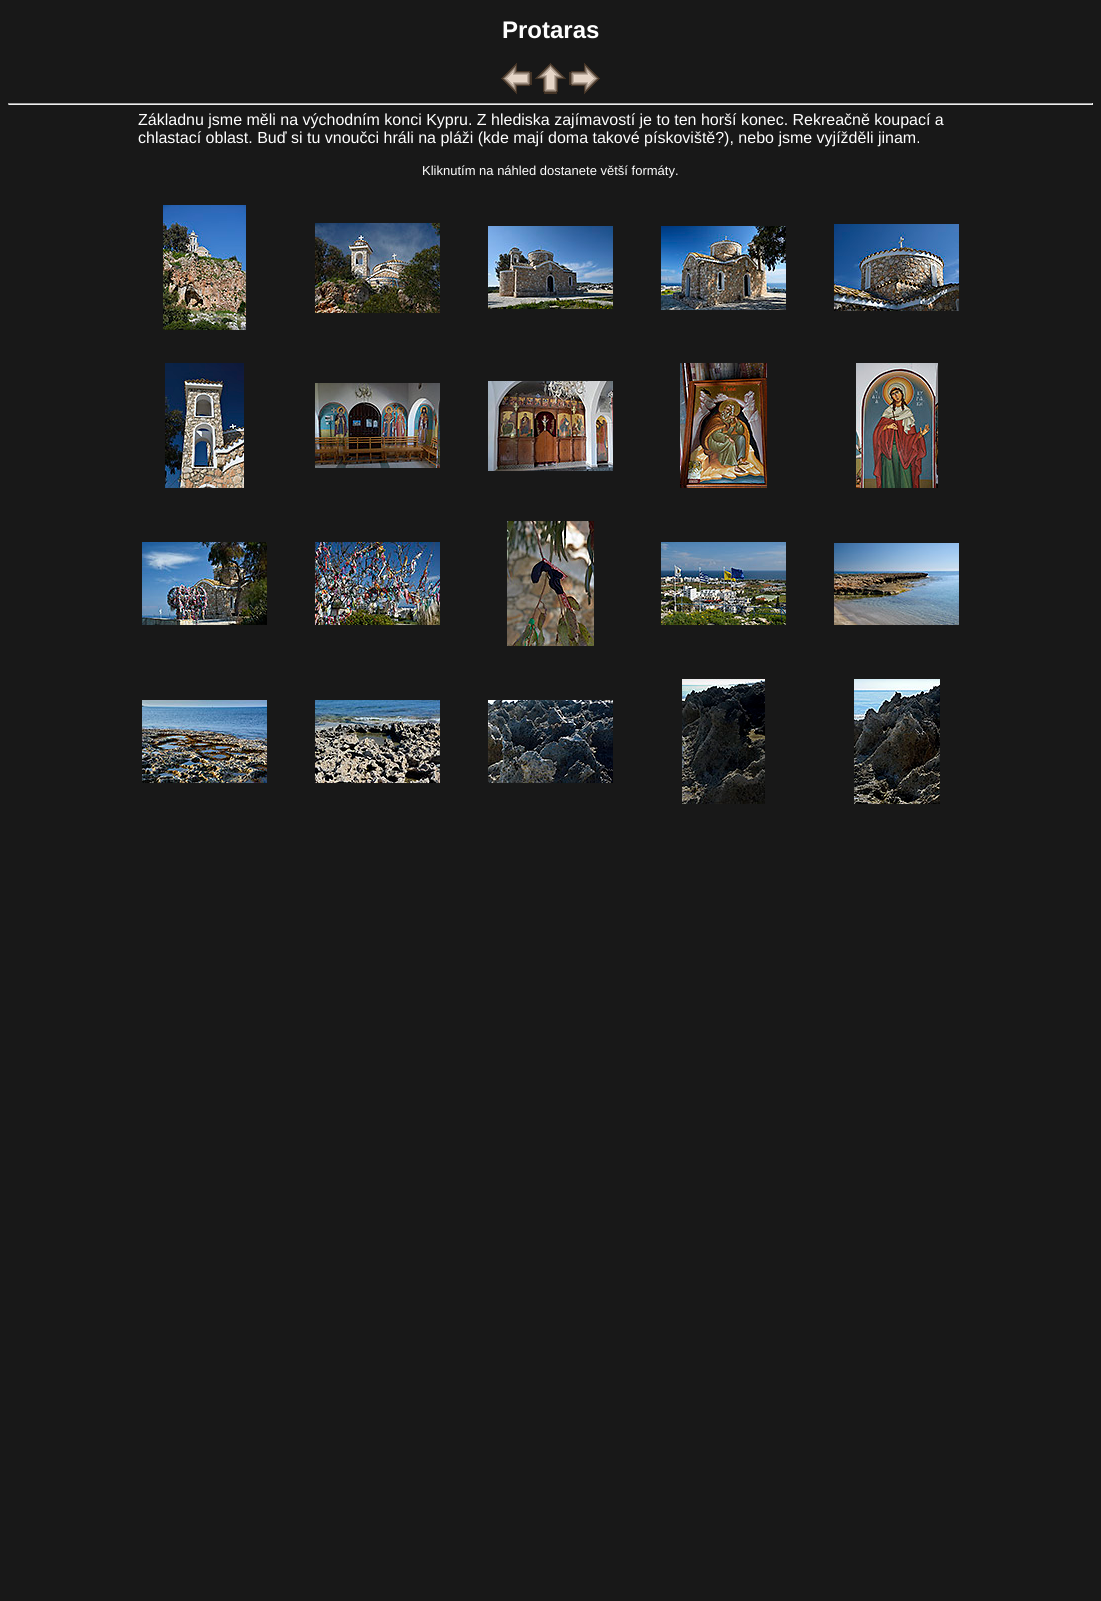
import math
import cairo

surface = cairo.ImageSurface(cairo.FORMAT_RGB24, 1101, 1601)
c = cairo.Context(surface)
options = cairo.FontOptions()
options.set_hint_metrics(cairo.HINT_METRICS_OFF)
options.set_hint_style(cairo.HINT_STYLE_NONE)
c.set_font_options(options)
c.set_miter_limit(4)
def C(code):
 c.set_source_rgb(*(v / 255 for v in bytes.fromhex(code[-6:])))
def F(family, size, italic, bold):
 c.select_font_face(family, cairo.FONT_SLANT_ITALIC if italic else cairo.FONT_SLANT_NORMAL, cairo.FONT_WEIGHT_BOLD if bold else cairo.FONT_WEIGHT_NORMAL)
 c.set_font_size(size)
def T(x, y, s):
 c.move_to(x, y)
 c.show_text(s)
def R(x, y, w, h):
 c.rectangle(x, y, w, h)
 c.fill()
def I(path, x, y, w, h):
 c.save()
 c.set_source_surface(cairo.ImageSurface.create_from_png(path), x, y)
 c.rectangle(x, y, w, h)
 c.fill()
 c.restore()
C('181818')
c.paint()
F('Liberation Sans',24,0,1)
C('ffffff')
T(502,38,'Protaras')
I('1.png',501,63,31,31)
I('2.png',535,63,31,31)
I('3.png',569,63,31,31)
C('9f9f9f')
R(8,103,1085,1)
C('eeeeee')
R(1092,103,1,2)
R(8,104,1085,1)
C('9f9f9f')
R(8,103,1,2)
F('Liberation Sans',16,0,0)
C('ffffff')
T(138,125,'Základnu jsme měli na východním konci Kypru. Z hlediska zajímavostí je to ten horší konec. Rekreačně koupací a')
T(138,143,'chlastací oblast. Buď si tu vnoučci hráli na pláži (kde mají doma takové pískoviště?), nebo jsme vyjížděli jinam.')
F('Liberation Sans',13,0,0)
T(422,175,'Kliknutím na náhled dostanete větší formáty.')
I('4.png',163,205,83,125)
I('5.png',315,223,125,90)
I('6.png',488,226,125,83)
I('7.png',661,226,125,84)
I('8.png',834,224,125,87)
I('9.png',165,363,79,125)
I('10.png',315,383,125,85)
I('11.png',488,381,125,90)
I('12.png',680,363,87,125)
I('13.png',856,363,82,125)
I('14.png',142,542,125,83)
I('15.png',315,542,125,83)
I('16.png',507,521,87,125)
I('17.png',661,542,125,83)
I('18.png',834,543,125,82)
I('19.png',142,700,125,83)
I('20.png',315,700,125,83)
I('21.png',488,700,125,83)
I('22.png',682,679,83,125)
I('23.png',854,679,86,125)
surface.write_to_png('o.png')
